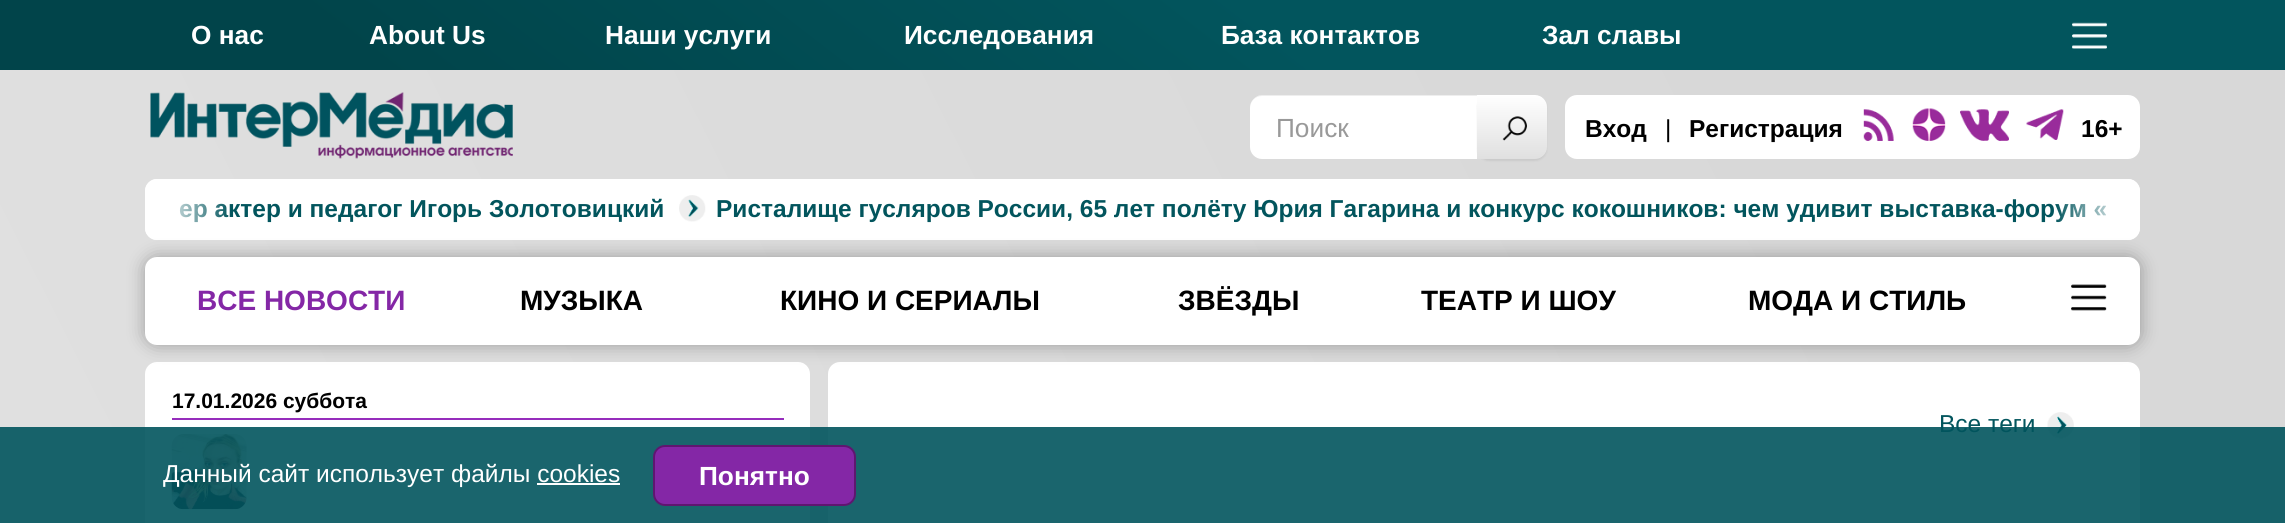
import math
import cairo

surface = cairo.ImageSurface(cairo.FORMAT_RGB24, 2285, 523)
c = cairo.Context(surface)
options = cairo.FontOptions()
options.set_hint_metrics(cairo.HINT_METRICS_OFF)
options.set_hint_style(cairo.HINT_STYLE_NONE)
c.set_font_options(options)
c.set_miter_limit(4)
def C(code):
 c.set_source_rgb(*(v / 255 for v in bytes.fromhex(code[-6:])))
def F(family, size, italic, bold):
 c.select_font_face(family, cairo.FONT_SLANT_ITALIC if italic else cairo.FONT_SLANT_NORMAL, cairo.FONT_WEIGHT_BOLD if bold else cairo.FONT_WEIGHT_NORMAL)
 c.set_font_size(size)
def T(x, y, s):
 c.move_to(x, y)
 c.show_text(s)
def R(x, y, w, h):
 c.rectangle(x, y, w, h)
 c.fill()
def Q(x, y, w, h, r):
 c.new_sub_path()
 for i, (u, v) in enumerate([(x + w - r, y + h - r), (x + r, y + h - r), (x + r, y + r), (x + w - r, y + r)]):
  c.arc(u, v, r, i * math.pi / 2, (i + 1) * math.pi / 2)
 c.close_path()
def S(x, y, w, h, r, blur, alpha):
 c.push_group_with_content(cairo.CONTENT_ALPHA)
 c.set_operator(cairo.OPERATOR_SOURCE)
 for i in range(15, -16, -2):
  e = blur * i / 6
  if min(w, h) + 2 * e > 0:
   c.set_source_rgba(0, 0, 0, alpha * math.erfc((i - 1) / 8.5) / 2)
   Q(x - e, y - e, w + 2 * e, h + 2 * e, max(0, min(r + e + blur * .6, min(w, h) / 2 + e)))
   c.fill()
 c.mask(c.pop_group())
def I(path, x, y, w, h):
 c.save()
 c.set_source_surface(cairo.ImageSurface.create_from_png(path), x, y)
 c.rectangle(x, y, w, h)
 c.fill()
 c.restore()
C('ffffff')
c.paint()
gradient = cairo.LinearGradient(-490,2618,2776,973)
gradient.add_color_stop_rgba(.27,0.886,0.886,0.886,1)
gradient.add_color_stop_rgba(.87,0.847,0.847,0.847,1)
c.set_source(gradient)
R(0,70,2285,453)
gradient = cairo.LinearGradient(1586,-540,699,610)
gradient.add_color_stop_rgba(.44,0.008,0.333,0.365,1)
gradient.add_color_stop_rgba(.84,0.004,0.267,0.29,1)
c.set_source(gradient)
R(0,0,2285,70)
F('Liberation Sans',26.25,0,1)
C('ffffff')
T(191,44,'О нас')
T(369,44,'About Us')
T(605,44,'Наши услуги')
T(904,44,'Исследования')
T(1221,44,'База контактов')
T(1542,44,'Зал славы')
I('1.png',2072,22,35,27)
I('2.png',150,92,363,67)
c.new_path()
c.move_to(1262,95)
c.line_to(1479,95)
c.line_to(1479,159)
c.line_to(1262,159)
c.curve_to(1255.5,159,1250,153.5,1250,147)
c.line_to(1250,107)
c.curve_to(1250,100.5,1255.5,95,1262,95)
c.close_path()
c.fill()
c.set_source_rgba(0,0,0,0.07)
c.new_path()
c.move_to(1262,96)
c.line_to(1479,96)
c.line_to(1479,95)
c.line_to(1262,95)
c.curve_to(1255,95,1250,100,1250,107)
c.line_to(1250,108)
c.curve_to(1250,102,1255,96,1262,96)
c.close_path()
c.fill()
F('Liberation Sans',26.25,0,0)
C('999999')
T(1276,137,'Поиск')
C('000000')
S(1477,96,70,65,12,1,.07)
gradient = cairo.LinearGradient(1512,95,1512,159)
gradient.add_color_stop_rgba(0,1,1,1,1)
gradient.add_color_stop_rgba(1,0.878,0.878,0.878,1)
c.set_source(gradient)
c.new_path()
c.move_to(1477,95)
c.line_to(1535,95)
c.curve_to(1541.5,95,1547,100.5,1547,107)
c.line_to(1547,147)
c.curve_to(1547,153.5,1541.5,159,1535,159)
c.line_to(1477,159)
c.close_path()
c.fill()
I('3.png',1502,116,25,25)
C('ffffff')
Q(1565,95,575,64,12)
c.fill()
F('Liberation Sans',24.5,0,1)
C('000000')
T(1585,137,'Вход')
F('Liberation Sans',24.5,0,0)
T(1665,137,'|')
F('Liberation Sans',24.5,0,1)
T(1689,137,'Регистрация')
I('4.png',1863,109,31,32)
I('5.png',1912,108,34,33)
I('6.png',1960,109,49,32)
I('7.png',2026,109,38,31)
T(2081,137,'16+')
C('ffffff')
Q(145,179,1995,61,12)
c.fill()
C('02555d')
T(179,217,'ер актер и педагог Игорь Золотовицкий')
gradient = cairo.LinearGradient(145,209,268,209)
gradient.add_color_stop_rgba(.1,1,1,1,1)
gradient.add_color_stop_rgba(.7,1,1,1,0)
c.set_source(gradient)
c.new_path()
c.move_to(157,179)
c.line_to(268,179)
c.line_to(268,240)
c.line_to(157,240)
c.curve_to(150.5,240,145,234.5,145,228)
c.line_to(145,191)
c.curve_to(145,184.5,150.5,179,157,179)
c.close_path()
c.fill()
C('02555d')
T(716,217,'Ристалище гусляров России, 65 лет полёту Юрия Гагарина и конкурс кокошников: чем удивит выставка-форум «')
gradient = cairo.LinearGradient(2140,209,2018,209)
gradient.add_color_stop_rgba(.1,1,1,1,1)
gradient.add_color_stop_rgba(.7,1,1,1,0)
c.set_source(gradient)
c.new_path()
c.move_to(2018,179)
c.line_to(2128,179)
c.curve_to(2134.5,179,2140,184.5,2140,191)
c.line_to(2140,228)
c.curve_to(2140,234.5,2134.5,240,2128,240)
c.line_to(2018,240)
c.close_path()
c.fill()
I('8.png',679,195,27,27)
C('ffffff')
Q(145,362,665,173,12)
c.fill()
Q(828,362,1312,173,12)
c.fill()
C('000000')
S(145,257,1995,88,12,9,.3)
C('ffffff')
Q(145,257,1995,88,12)
c.fill()
F('Liberation Sans',28,0,1)
C('8427a6')
T(197,310,'ВСЕ НОВОСТИ')
C('000000')
T(520,310,'МУЗЫКА')
T(780,310,'КИНО И СЕРИАЛЫ')
T(1178,310,'ЗВЁЗДЫ')
T(1421,310,'ТЕАТР И ШОУ')
T(1748,310,'МОДА И СТИЛЬ')
I('9.png',2071,284,36,27)
C('962dbc')
R(172,418,612,2)
F('Liberation Sans',21,0,1)
C('000000')
T(172,408,'17.01.2026 суббота')
I('10.png',171,434,76,76)
F('Liberation Sans',24.5,0,0)
C('02555d')
T(1939,432,'Все теги')
I('11.png',2047,412,27,27)
c.set_source_rgba(0.008,0.333,0.365,0.9)
R(0,427,2285,96)
C('ffffff')
T(163,482,'Данный сайт использует файлы cookies')
C('8427a6')
Q(654,446,201,59,11)
c.fill_preserve()
C('5f1670')
c.stroke()
F('Liberation Sans',26.25,0,1)
C('ffffff')
T(699,485,'Понятно')
R(537,483,83,2)
surface.write_to_png('o.png')
